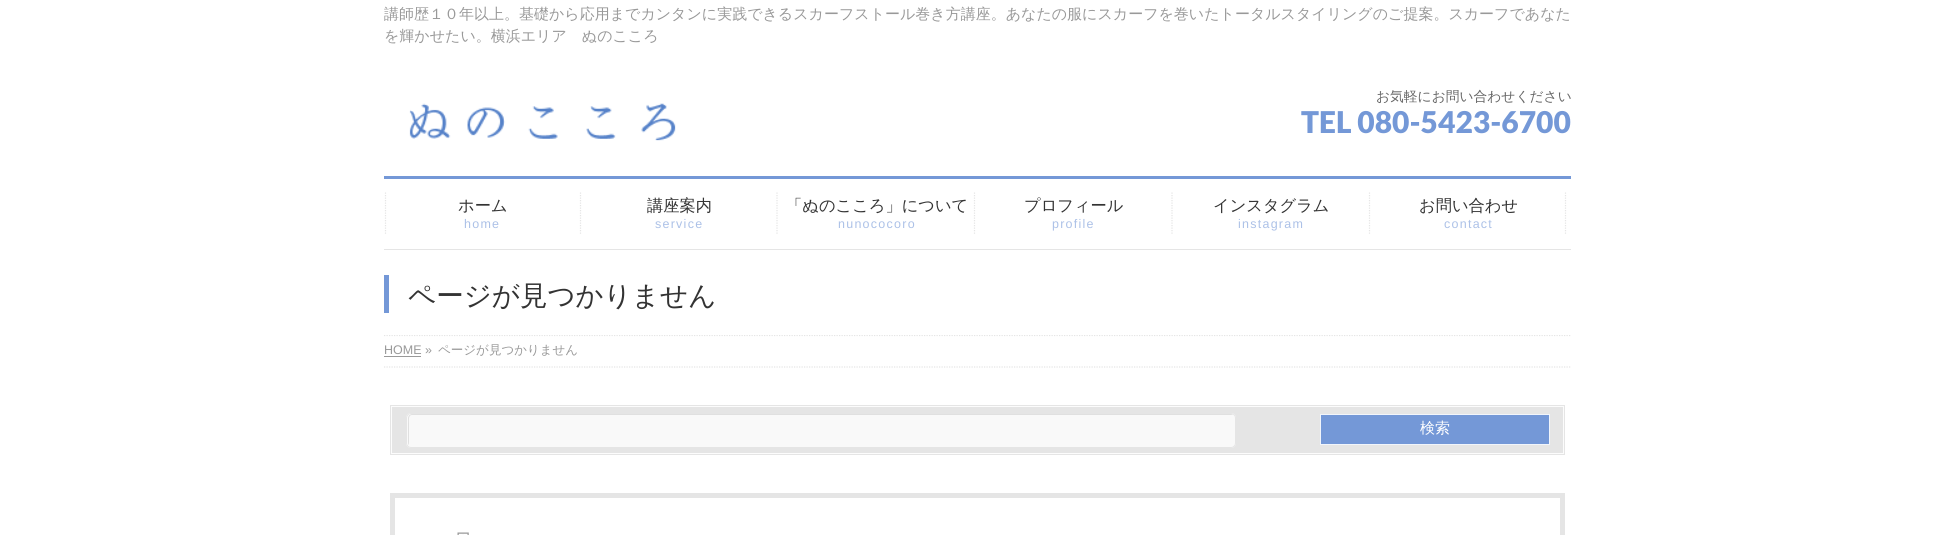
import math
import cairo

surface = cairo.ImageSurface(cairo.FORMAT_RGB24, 1954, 535)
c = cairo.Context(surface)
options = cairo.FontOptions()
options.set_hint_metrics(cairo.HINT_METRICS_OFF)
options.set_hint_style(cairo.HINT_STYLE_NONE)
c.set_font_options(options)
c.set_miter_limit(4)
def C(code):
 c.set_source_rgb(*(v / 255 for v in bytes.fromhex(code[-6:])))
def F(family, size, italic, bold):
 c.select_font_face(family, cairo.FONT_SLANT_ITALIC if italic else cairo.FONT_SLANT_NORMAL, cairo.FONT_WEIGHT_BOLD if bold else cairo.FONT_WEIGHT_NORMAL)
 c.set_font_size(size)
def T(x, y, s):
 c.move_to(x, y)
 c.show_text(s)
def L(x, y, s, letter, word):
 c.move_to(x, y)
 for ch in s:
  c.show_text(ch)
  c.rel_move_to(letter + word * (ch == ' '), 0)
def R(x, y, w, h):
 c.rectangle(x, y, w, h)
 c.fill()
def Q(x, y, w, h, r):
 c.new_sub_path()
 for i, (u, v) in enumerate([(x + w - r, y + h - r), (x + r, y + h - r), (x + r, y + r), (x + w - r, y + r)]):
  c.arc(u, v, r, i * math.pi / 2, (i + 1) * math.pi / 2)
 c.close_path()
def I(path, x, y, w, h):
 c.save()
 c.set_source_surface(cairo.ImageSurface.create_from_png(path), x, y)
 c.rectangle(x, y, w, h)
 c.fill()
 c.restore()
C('ffffff')
c.paint()
F('WenQuanYi Zen Hei Medium',15,0,0)
C('999999')
T(384,19,'講師歴１０年以上。基礎から応用までカンタンに実践できるスカーフストール巻き方講座。あなたの服にスカーフを巻いたトータルスタイリングのご提案。スカーフであなた')
T(384,41,'を輝かせたい。横浜エリア　ぬのこころ')
I('1.png',409,103,267,38)
F('WenQuanYi Zen Hei Medium',13.75,0,0)
C('666666')
T(1376,101,'お気軽にお問い合わせください')
F('Lato Black',30,0,0)
C('7498d7')
T(1301,133,'TEL 080-5423-6700')
R(384,176,1187,3)
C('e5e5e5')
R(384,249,1187,1)
c.new_path()
c.move_to(385.5,192.5)
c.line_to(385.5,235)
c.set_line_width(1.2)
c.set_dash([1.25,1.25])
c.stroke()
F('WenQuanYi Zen Hei Medium',16.25,0,0)
C('333333')
T(458,211,'ホーム')
F('Liberation Sans',12.5,0,0)
C('acc1e7')
L(464,228,'home',1.25,0)
c.new_path()
c.move_to(580.5,192.5)
c.line_to(580.5,235)
C('e5e5e5')
c.stroke()
F('WenQuanYi Zen Hei Medium',16.25,0,0)
C('333333')
T(647,211,'講座案内')
F('Liberation Sans',12.5,0,0)
C('acc1e7')
L(655,228,'service',1.25,0)
c.new_path()
c.move_to(777,192.5)
c.line_to(777,235)
C('e5e5e5')
c.stroke()
F('WenQuanYi Zen Hei Medium',16.25,0,0)
C('333333')
T(786,211,'「ぬのこころ」について')
F('Liberation Sans',12.5,0,0)
C('acc1e7')
L(838,228,'nunococoro',1.25,0)
c.new_path()
c.move_to(974.5,192.5)
c.line_to(974.5,235)
C('e5e5e5')
c.stroke()
F('WenQuanYi Zen Hei Medium',16.25,0,0)
C('333333')
T(1024,211,'プロフィール')
F('Liberation Sans',12.5,0,0)
C('acc1e7')
L(1052,228,'profile',1.25,0)
c.new_path()
c.move_to(1172,192.5)
c.line_to(1172,235)
C('e5e5e5')
c.stroke()
F('WenQuanYi Zen Hei Medium',16.25,0,0)
C('333333')
T(1213,211,'インスタグラム')
F('Liberation Sans',12.5,0,0)
C('acc1e7')
L(1238,228,'instagram',1.25,0)
c.new_path()
c.move_to(1369.5,192.5)
c.line_to(1369.5,235)
C('e5e5e5')
c.stroke()
F('WenQuanYi Zen Hei Medium',16.25,0,0)
C('333333')
T(1419,211,'お問い合わせ')
F('Liberation Sans',12.5,0,0)
C('acc1e7')
L(1444,228,'contact',1.25,0)
c.new_path()
c.move_to(1565.5,192.5)
c.line_to(1565.5,235)
C('e5e5e5')
c.stroke()
C('7498d7')
R(384,275,5,38)
F('WenQuanYi Zen Hei Medium',27.5,0,0)
C('333333')
T(408,305,'ページが見つかりません')
c.save()
c.rectangle(353,335,1250,33)
c.clip()
c.new_path()
c.move_to(384,335.5)
c.line_to(1571,335.5)
C('e5e5e5')
c.stroke()
c.restore()
c.new_path()
c.move_to(384,367)
c.line_to(1571,367)
C('e5e5e5')
c.stroke()
F('Liberation Sans',12.5,0,0)
C('999999')
T(384,354,'HOME »')
R(384,356,37,1)
F('WenQuanYi Zen Hei Medium',12.5,0,0)
T(438,354,'ページが見つかりません')
C('e5e5e5')
R(390,405,1175,50)
c.rectangle(391.5,406.5,1172,47)
C('fcfcfc')
c.set_line_width(1)
c.set_dash([])
c.stroke()
C('f9f9f9')
Q(406,413,830,35,5)
c.fill()
C('e0e0e0')
c.new_path()
c.move_to(412,415)
c.line_to(1232,415)
c.line_to(1234,415)
c.curve_to(1233,415,1232,414,1231,414)
c.line_to(412,414)
c.curve_to(410,414,408,416,408,418)
c.line_to(408,442)
c.curve_to(408,443,408,444,409,445)
c.line_to(409,423)
c.curve_to(409,421,408,415,412,415)
c.close_path()
c.fill()
Q(406.5,413.5,829,34,4.5)
C('e5e5e5')
c.stroke()
C('7498d7')
c.rectangle(1320.5,414.5,229,30)
c.fill_preserve()
C('f1f5fb')
c.stroke()
F('WenQuanYi Zen Hei Medium',15,0,0)
C('ffffff')
T(1420,433,'検索')
c.rectangle(392.5,495.5,1170,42)
C('e5e5e5')
c.set_line_width(5)
c.stroke()
I('2.png',457,532,12,3)
surface.write_to_png('o.png')
